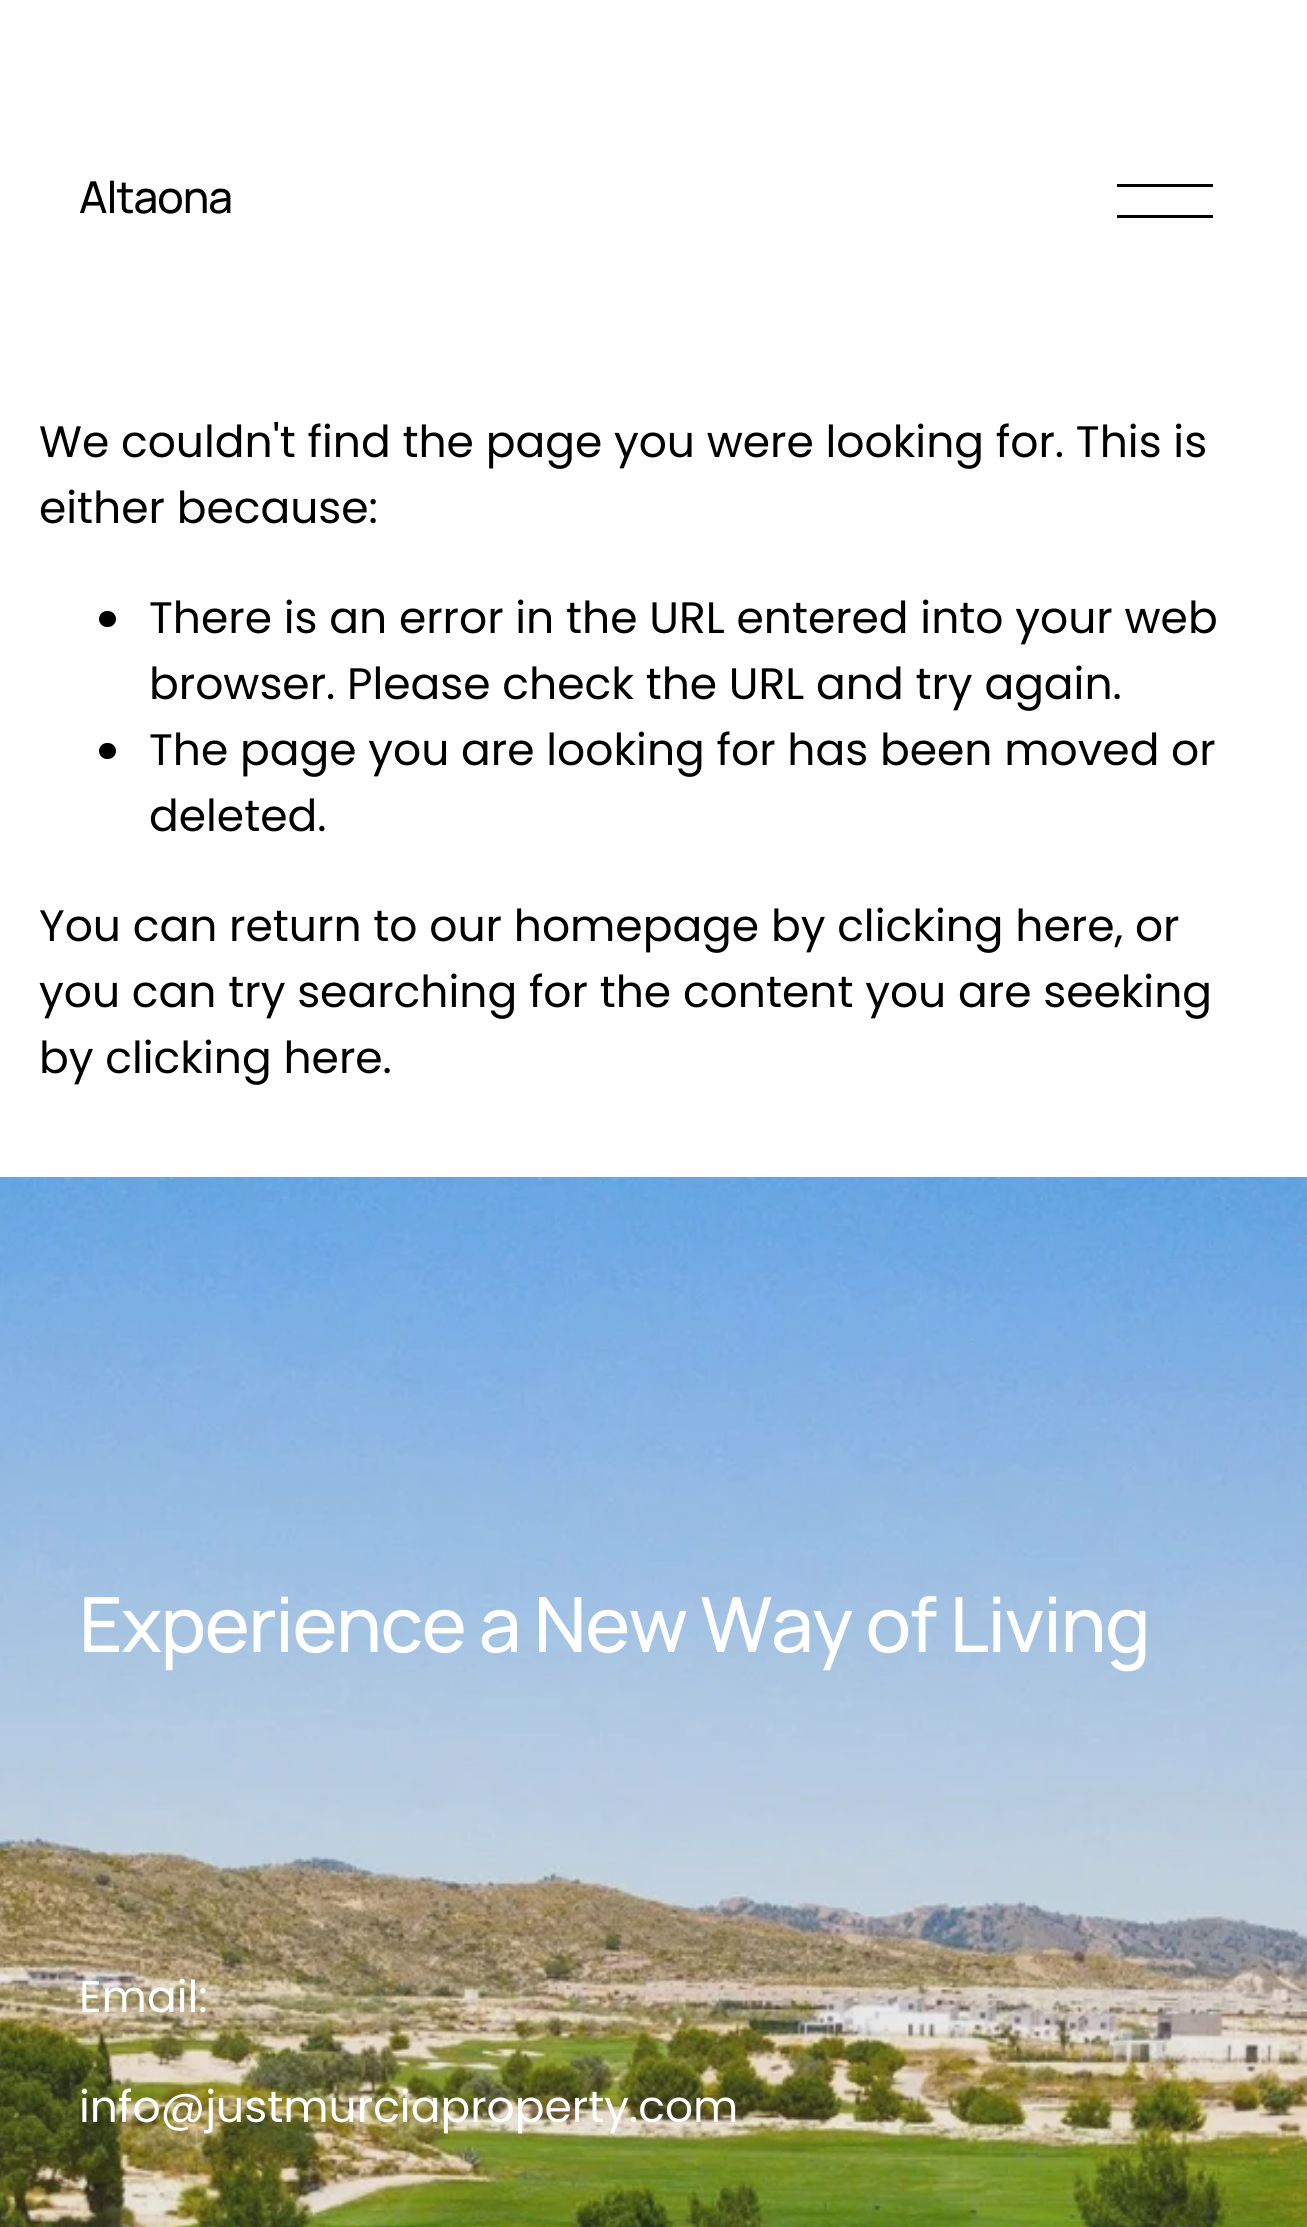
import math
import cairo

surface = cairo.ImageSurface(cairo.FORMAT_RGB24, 1307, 2227)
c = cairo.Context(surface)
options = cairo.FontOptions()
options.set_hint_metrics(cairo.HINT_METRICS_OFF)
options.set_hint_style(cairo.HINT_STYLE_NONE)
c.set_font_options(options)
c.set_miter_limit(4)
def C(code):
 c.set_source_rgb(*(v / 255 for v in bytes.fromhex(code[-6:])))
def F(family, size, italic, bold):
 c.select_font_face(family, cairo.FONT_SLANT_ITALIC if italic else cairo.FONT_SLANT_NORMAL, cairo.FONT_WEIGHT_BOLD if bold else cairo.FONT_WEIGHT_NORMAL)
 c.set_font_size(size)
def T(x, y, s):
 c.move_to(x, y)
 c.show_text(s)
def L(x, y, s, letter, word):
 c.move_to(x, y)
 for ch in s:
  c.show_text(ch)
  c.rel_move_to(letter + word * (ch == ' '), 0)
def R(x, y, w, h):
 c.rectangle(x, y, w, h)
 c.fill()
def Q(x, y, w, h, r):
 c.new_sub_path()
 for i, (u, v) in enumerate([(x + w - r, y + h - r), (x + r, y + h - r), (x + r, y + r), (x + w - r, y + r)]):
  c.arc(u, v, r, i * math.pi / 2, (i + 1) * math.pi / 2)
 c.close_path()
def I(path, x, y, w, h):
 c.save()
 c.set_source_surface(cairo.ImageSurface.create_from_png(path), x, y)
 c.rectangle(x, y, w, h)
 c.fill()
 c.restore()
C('ffffff')
c.paint()
F('Manrope Medium',44,0,0)
C('000000')
L(79,213,'Altaona',-1,0)
R(1117,184,96,3)
R(1117,215,96,3)
F('Poppins',44,0,0)
T(39,457,'We couldn\'t find the page you were looking for. This is')
T(39,523,'either because:')
Q(99,611,17,16,8)
c.fill()
T(149,633,'There is an error in the URL entered into your web')
T(149,699,'browser. Please check the URL and try again.')
Q(99,743,17,16,8)
c.fill()
T(149,765,'The page you are looking for has been moved or')
T(149,831,'deleted.')
T(39,941,'You can return to our homepage by clicking here, or')
T(39,1007,'you can try searching for the content you are seeking')
T(39,1073,'by clicking here.')
I('1.png',0,1177,1307,1050)
F('Manrope Medium',76.1,0,0)
C('ffffff')
L(79,1652,'Experience a New Way of Living',-1.5,0)
F('Poppins',44,0,0)
T(79,2012,'Email:')
T(79,2122,'info@justmurciaproperty.com')
surface.write_to_png('o.png')
